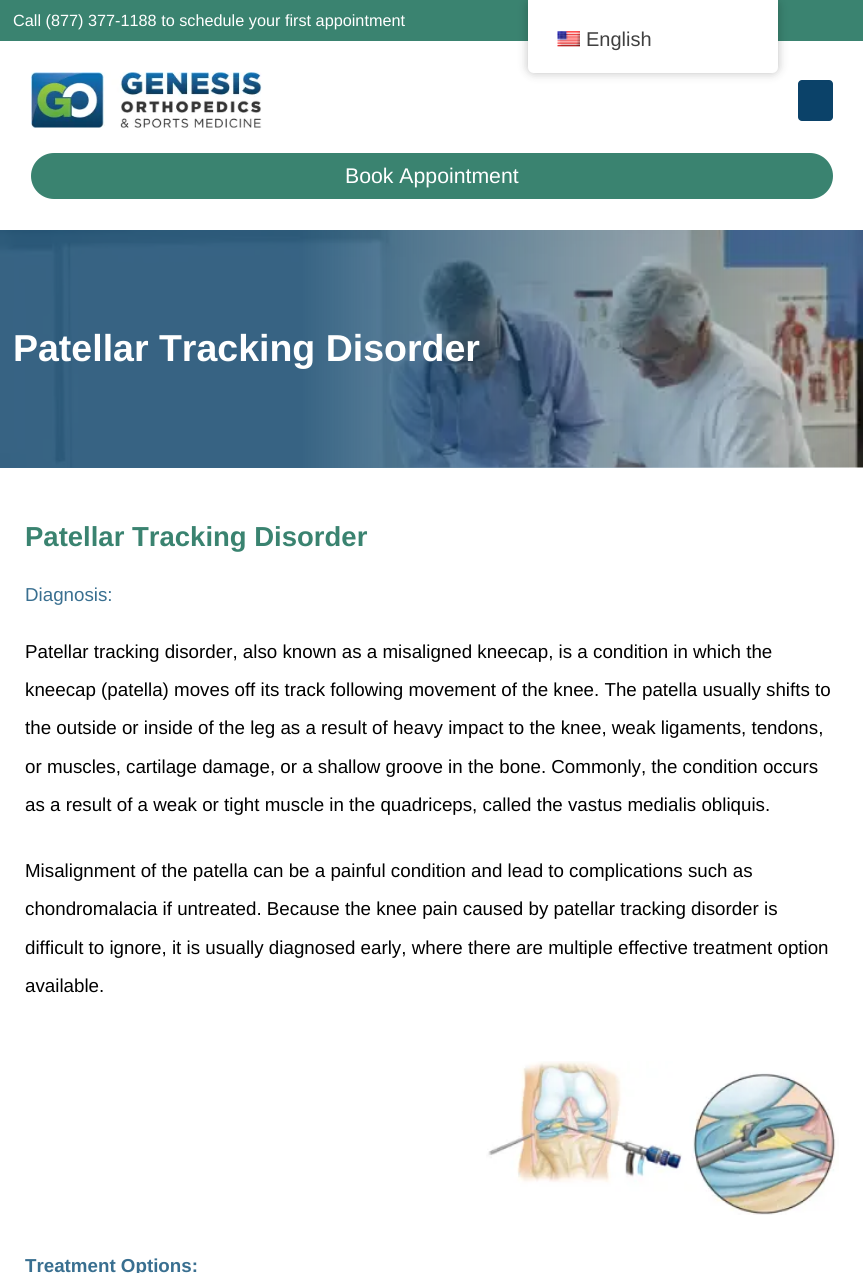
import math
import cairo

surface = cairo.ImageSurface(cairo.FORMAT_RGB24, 863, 1273)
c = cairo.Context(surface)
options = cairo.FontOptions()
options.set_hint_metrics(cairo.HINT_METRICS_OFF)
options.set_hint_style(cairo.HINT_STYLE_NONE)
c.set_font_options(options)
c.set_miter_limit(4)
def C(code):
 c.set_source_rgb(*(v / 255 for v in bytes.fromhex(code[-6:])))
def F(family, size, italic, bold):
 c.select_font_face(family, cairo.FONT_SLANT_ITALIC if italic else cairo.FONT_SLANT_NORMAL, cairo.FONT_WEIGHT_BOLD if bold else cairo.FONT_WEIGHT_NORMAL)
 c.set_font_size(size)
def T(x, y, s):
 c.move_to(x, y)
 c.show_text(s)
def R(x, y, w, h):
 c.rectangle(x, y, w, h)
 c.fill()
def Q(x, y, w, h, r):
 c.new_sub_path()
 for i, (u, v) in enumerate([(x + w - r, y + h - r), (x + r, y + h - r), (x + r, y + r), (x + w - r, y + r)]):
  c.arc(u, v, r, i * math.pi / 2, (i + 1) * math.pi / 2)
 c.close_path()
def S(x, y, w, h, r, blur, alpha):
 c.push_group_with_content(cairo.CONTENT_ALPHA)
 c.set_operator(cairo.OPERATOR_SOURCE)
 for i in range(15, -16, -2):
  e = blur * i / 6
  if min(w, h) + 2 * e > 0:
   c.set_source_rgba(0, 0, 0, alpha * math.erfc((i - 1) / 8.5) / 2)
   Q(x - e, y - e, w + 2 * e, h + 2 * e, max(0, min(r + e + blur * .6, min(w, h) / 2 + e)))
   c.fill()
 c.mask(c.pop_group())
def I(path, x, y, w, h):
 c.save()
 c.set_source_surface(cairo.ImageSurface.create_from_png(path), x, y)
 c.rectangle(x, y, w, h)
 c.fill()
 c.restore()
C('ffffff')
c.paint()
C('3a8370')
R(0,0,863,41)
F('Liberation Sans',16.25,0,0)
C('ffffff')
T(13,26,'Call (877) 377-1188 to schedule your first appointment')
I('1.png',31,72,231,56)
C('0b4269')
Q(798,80,35,41,4)
c.fill()
C('3a8370')
Q(31,153,802,46,23)
c.fill()
F('Liberation Sans',21.25,0,0)
C('ffffff')
T(345,183,'Book Appointment')
C('000000')
S(528,0,250,73,6,5,.25)
C('ffffff')
c.new_path()
c.move_to(528,0)
c.line_to(778,0)
c.line_to(778,67)
c.curve_to(778,70.5,775.5,73,772,73)
c.line_to(534,73)
c.curve_to(530.5,73,528,70.5,528,67)
c.close_path()
c.fill()
I('2.png',557,31,23,16)
F('Liberation Sans',20,0,0)
C('404040')
T(586,46,'English')
I('3.png',0,230,863,238)
gradient = cairo.LinearGradient(0,349,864,349)
gradient.add_color_stop_rgba(.35,0.043,0.259,0.412,.81)
gradient.add_color_stop_rgba(1,0.043,0.259,0.412,0)
c.set_source(gradient)
R(0,230,849,238)
F('Liberation Sans',37.5,0,1)
C('ffffff')
T(13,361,'Patellar Tracking Disorder')
F('Liberation Sans',27.5,0,1)
C('3a8370')
T(25,546,'Patellar Tracking Disorder')
F('Liberation Sans',18.75,0,0)
C('396f90')
T(25,601,'Diagnosis:')
C('000000')
T(25,658,'Patellar tracking disorder, also known as a misaligned kneecap, is a condition in which the')
T(25,696,'kneecap (patella) moves off its track following movement of the knee. The patella usually shifts to')
T(25,734,'the outside or inside of the leg as a result of heavy impact to the knee, weak ligaments, tendons,')
T(25,773,'or muscles, cartilage damage, or a shallow groove in the bone. Commonly, the condition occurs')
T(25,811,'as a result of a weak or tight muscle in the quadriceps, called the vastus medialis obliquis.')
T(25,877,'Misalignment of the patella can be a painful condition and lead to complications such as')
T(25,915,'chondromalacia if untreated. Because the knee pain caused by patellar tracking disorder is')
T(25,954,'difficult to ignore, it is usually diagnosed early, where there are multiple effective treatment option')
T(25,992,'available.')
I('4.png',486,1061,353,154)
F('Liberation Sans',18.75,0,1)
C('396f90')
T(25,1272,'Treatment Options:')
surface.write_to_png('o.png')
